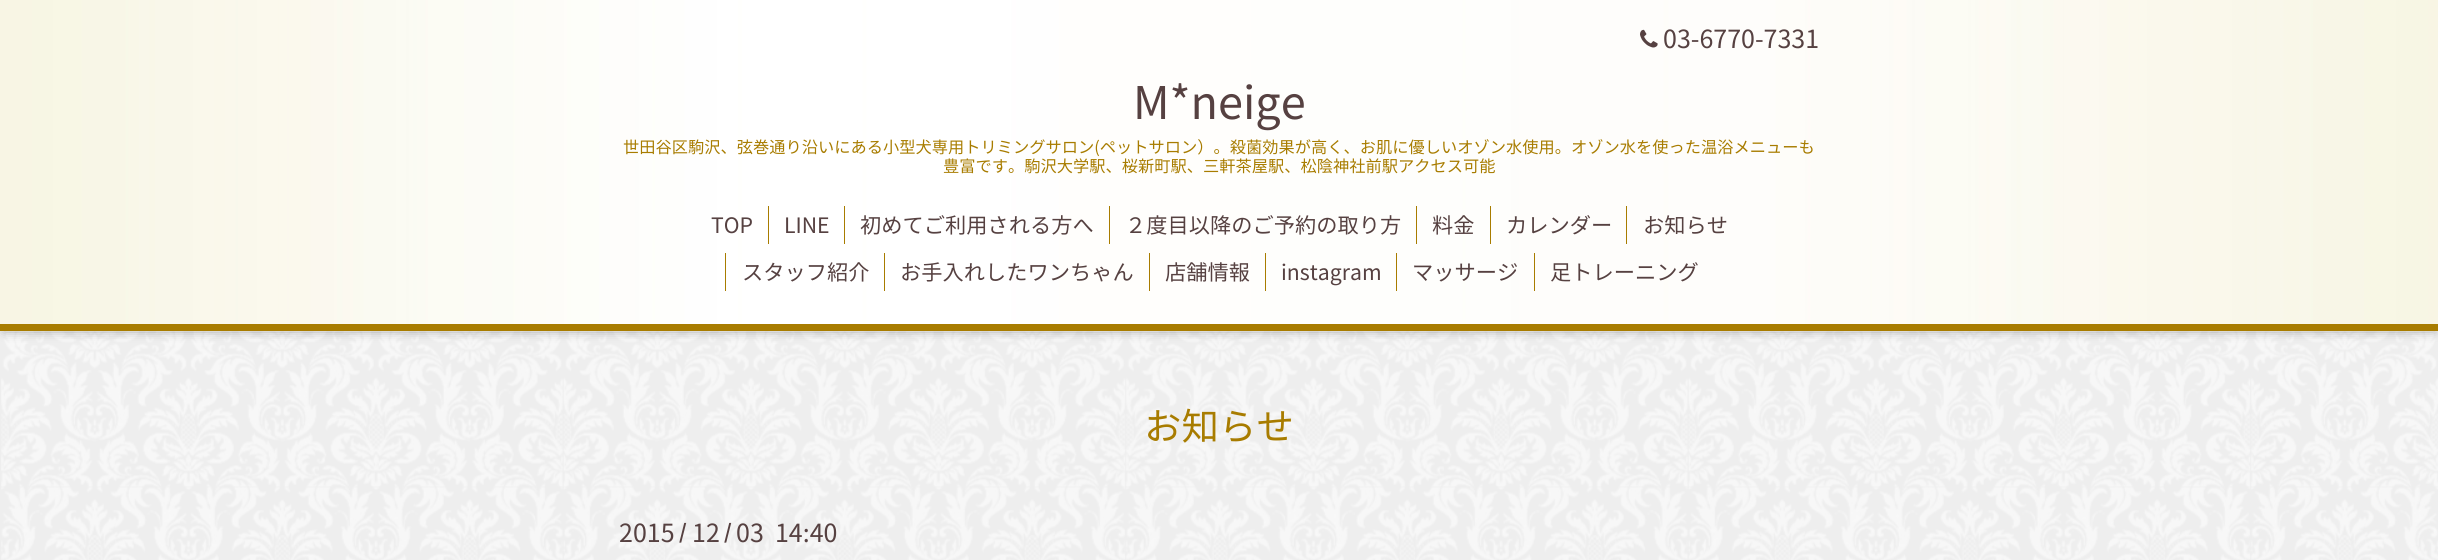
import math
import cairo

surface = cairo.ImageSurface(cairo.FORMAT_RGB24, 2438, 560)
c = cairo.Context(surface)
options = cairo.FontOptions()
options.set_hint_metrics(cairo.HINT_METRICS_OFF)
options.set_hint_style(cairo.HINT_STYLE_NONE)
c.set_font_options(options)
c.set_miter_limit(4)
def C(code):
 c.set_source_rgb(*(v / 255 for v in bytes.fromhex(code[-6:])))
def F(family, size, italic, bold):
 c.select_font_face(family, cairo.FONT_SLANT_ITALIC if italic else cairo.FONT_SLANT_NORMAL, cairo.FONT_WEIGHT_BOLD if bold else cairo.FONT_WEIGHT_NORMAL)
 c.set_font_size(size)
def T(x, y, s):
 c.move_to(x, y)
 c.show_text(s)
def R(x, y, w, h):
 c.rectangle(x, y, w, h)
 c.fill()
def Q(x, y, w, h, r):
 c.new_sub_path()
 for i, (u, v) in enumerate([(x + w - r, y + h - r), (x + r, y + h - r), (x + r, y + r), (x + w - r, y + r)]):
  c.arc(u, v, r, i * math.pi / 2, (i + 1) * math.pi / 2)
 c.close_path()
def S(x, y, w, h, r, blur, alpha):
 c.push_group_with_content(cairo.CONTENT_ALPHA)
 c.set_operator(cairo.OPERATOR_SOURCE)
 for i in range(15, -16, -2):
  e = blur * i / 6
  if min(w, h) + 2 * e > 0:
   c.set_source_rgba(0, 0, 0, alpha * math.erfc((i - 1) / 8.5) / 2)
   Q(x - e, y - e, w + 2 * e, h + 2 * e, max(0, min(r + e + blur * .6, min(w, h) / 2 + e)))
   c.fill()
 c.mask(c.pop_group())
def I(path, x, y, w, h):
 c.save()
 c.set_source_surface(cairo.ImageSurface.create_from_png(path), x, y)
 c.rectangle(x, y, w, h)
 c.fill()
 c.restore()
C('eeeeee')
c.paint()
I('1.png',1,331,2437,229)
C('000000')
S(5,6,2429,322,0,6,.6)
I('2.png',0,0,2438,332)
C('a87c00')
R(0,324,2438,7)
I('3.png',1640,29,18,19)
F('Noto Sans JP',25,0,0)
C('564141')
T(1663,48,'03-6770-7331')
F('Noto Sans JP',45,0,0)
T(1133,119,'M*neige')
F('Noto Sans JP',16.25,0,0)
C('a87c00')
T(623,153,'世田谷区駒沢、弦巻通り沿いにある小型犬専用トリミングサロン(ペットサロン）。殺菌効果が高く、お肌に優しいオゾン水使用。オゾン水を使った温浴メニューも')
T(943,172,'豊富です。駒沢大学駅、桜新町駅、三軒茶屋駅、松陰神社前駅アクセス可能')
F('Noto Sans JP',21.25,0,0)
C('564141')
T(711,233,'TOP')
C('a87c00')
R(768,206,1,38)
C('564141')
T(784,233,'LINE')
C('a87c00')
R(844,206,1,38)
C('564141')
T(860,233,'初めてご利用される方へ')
C('a87c00')
R(1109,206,1,38)
C('564141')
T(1125,233,'２度目以降のご予約の取り方')
C('a87c00')
R(1416,206,1,38)
C('564141')
T(1432,233,'料金')
C('a87c00')
R(1490,206,1,38)
C('564141')
T(1506,233,'カレンダー')
C('a87c00')
R(1626,206,1,38)
C('564141')
T(1643,233,'お知らせ')
C('a87c00')
R(725,253,1,38)
C('564141')
T(742,280,'スタッフ紹介')
C('a87c00')
R(884,253,1,38)
C('564141')
T(900,280,'お手入れしたワンちゃん')
C('a87c00')
R(1149,253,1,38)
C('564141')
T(1165,280,'店舗情報')
C('a87c00')
R(1265,253,1,38)
C('564141')
T(1281,280,'instagram')
C('a87c00')
R(1396,253,1,38)
C('564141')
T(1412,280,'マッサージ')
C('a87c00')
R(1534,253,1,38)
C('564141')
T(1550,280,'足トレーニング')
F('Noto Sans JP',37.5,0,0)
C('a87c00')
T(1144,440,'お知らせ')
F('Noto Sans JP',25,0,0)
C('564141')
T(619,542,'2015')
F('Noto Sans JP',20,0,1)
T(679,539,'/')
F('Noto Sans JP',25,0,0)
T(692,542,'12')
F('Noto Sans JP',20,0,1)
T(724,539,'/')
F('Noto Sans JP',25,0,0)
T(736,542,'03  14:40')
surface.write_to_png('o.png')
